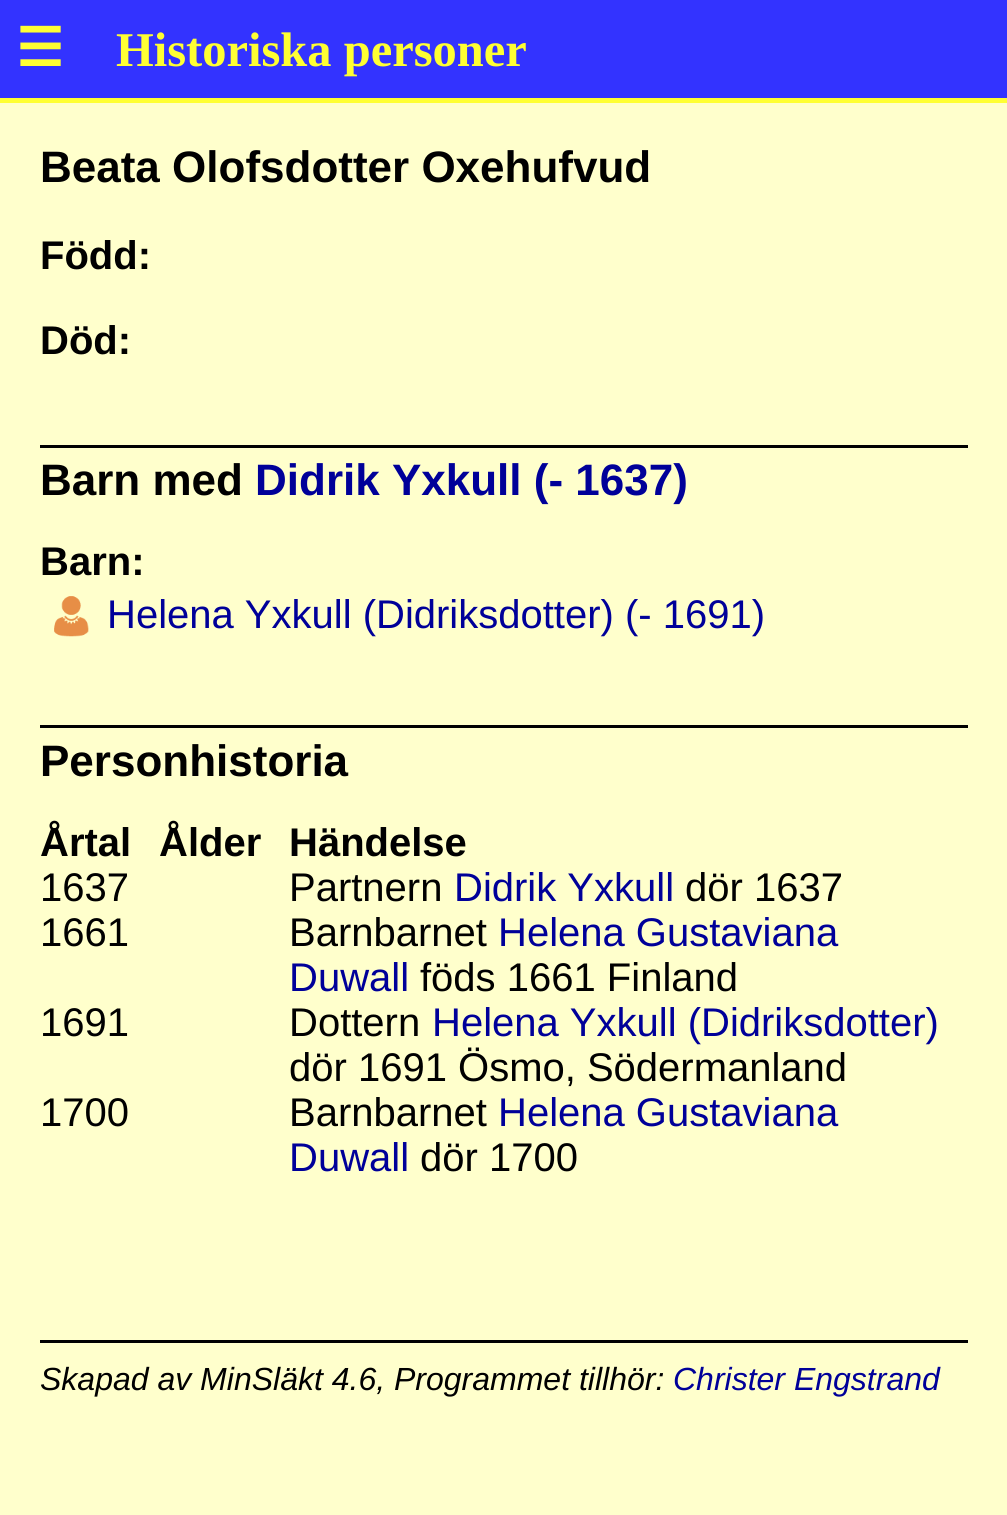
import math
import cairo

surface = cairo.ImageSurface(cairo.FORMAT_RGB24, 1007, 1515)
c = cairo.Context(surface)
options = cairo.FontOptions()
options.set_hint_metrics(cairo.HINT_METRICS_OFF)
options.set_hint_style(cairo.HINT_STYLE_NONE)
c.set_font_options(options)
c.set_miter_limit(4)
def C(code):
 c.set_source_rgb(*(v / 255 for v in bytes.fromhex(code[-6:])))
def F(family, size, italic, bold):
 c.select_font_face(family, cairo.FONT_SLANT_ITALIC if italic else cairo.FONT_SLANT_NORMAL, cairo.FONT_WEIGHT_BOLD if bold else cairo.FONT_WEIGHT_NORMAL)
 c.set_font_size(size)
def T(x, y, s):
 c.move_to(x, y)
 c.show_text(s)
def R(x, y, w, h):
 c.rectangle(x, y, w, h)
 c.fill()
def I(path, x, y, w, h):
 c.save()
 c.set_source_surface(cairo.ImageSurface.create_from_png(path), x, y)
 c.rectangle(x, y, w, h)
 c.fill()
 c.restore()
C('ffffcc')
c.paint()
C('3333ff')
R(0,0,1007,98)
C('ffff33')
R(0,98,1007,5)
F('DejaVu Sans',53,0,1)
T(16,66,'☰')
F('Liberation Serif',48.5,0,1)
T(116,66,'Historiska personer')
F('Liberation Sans',44,0,1)
C('000000')
T(40,182,'Beata Olofsdotter Oxehufvud')
F('Liberation Sans',40,0,1)
T(40,269,'Född:')
T(40,354,'Död:')
R(40,445,928,3)
F('Liberation Sans',44,0,1)
T(40,495,'Barn med')
C('000099')
T(255,495,'Didrik Yxkull (- 1637)')
F('Liberation Sans',40,0,1)
C('000000')
T(40,575,'Barn:')
I('1.png',54,596,35,41)
F('Liberation Sans',40,0,0)
C('000099')
T(107,628,'Helena Yxkull (Didriksdotter) (- 1691)')
C('000000')
R(40,725,928,3)
F('Liberation Sans',44,0,1)
T(40,776,'Personhistoria')
F('Liberation Sans',40,0,1)
T(40,856,'Årtal')
T(159,856,'Ålder')
T(289,856,'Händelse')
F('Liberation Sans',40,0,0)
T(40,901,'1637')
T(289,901,'Partnern')
C('000099')
T(454,901,'Didrik Yxkull')
C('000000')
T(685,901,'dör 1637')
T(40,946,'1661')
T(289,946,'Barnbarnet')
C('000099')
T(498,946,'Helena Gustaviana')
T(289,991,'Duwall')
C('000000')
T(420,991,'föds 1661 Finland')
T(40,1036,'1691')
T(289,1036,'Dottern')
C('000099')
T(432,1036,'Helena Yxkull (Didriksdotter)')
C('000000')
T(289,1081,'dör 1691 Ösmo, Södermanland')
T(40,1126,'1700')
T(289,1126,'Barnbarnet')
C('000099')
T(498,1126,'Helena Gustaviana')
T(289,1171,'Duwall')
C('000000')
T(420,1171,'dör 1700')
R(40,1340,928,3)
F('Liberation Sans',32,1,0)
T(40,1390,'Skapad av MinSläkt 4.6, Programmet tillhör:')
C('000099')
T(673,1390,'Christer Engstrand')
surface.write_to_png('o.png')
